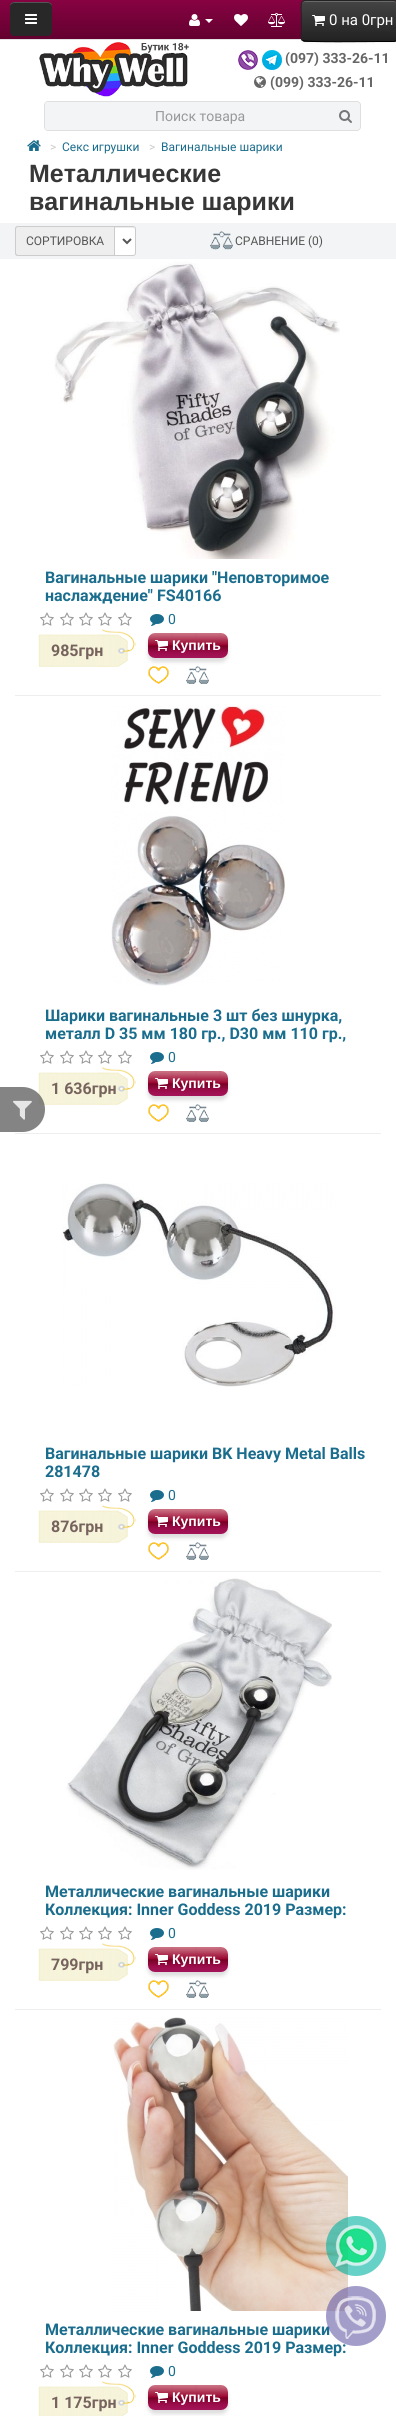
import math
import cairo

surface = cairo.ImageSurface(cairo.FORMAT_RGB24, 396, 2416)
c = cairo.Context(surface)
options = cairo.FontOptions()
options.set_hint_metrics(cairo.HINT_METRICS_OFF)
options.set_hint_style(cairo.HINT_STYLE_NONE)
c.set_font_options(options)
c.set_miter_limit(4)
def C(code):
 c.set_source_rgb(*(v / 255 for v in bytes.fromhex(code[-6:])))
def F(family, size, italic, bold):
 c.select_font_face(family, cairo.FONT_SLANT_ITALIC if italic else cairo.FONT_SLANT_NORMAL, cairo.FONT_WEIGHT_BOLD if bold else cairo.FONT_WEIGHT_NORMAL)
 c.set_font_size(size)
def T(x, y, s):
 c.move_to(x, y)
 c.show_text(s)
def R(x, y, w, h):
 c.rectangle(x, y, w, h)
 c.fill()
def Q(x, y, w, h, r):
 c.new_sub_path()
 for i, (u, v) in enumerate([(x + w - r, y + h - r), (x + r, y + h - r), (x + r, y + r), (x + w - r, y + r)]):
  c.arc(u, v, r, i * math.pi / 2, (i + 1) * math.pi / 2)
 c.close_path()
def S(x, y, w, h, r, blur, alpha):
 c.push_group_with_content(cairo.CONTENT_ALPHA)
 c.set_operator(cairo.OPERATOR_SOURCE)
 for i in range(15, -16, -2):
  e = blur * i / 6
  if min(w, h) + 2 * e > 0:
   c.set_source_rgba(0, 0, 0, alpha * math.erfc((i - 1) / 8.5) / 2)
   Q(x - e, y - e, w + 2 * e, h + 2 * e, max(0, min(r + e + blur * .6, min(w, h) / 2 + e)))
   c.fill()
 c.mask(c.pop_group())
def I(path, x, y, w, h):
 c.save()
 c.set_source_surface(cairo.ImageSurface.create_from_png(path), x, y)
 c.rectangle(x, y, w, h)
 c.fill()
 c.restore()
C('ffffff')
c.paint()
gradient = cairo.LinearGradient(198,0,198,39)
gradient.add_color_stop_rgba(0,0.529,0.008,0.259,1)
gradient.add_color_stop_rgba(1,0.388,0.004,0.188,1)
c.set_source(gradient)
R(0,0,396,39)
C('282828')
Q(10,2,42,34,4)
c.fill()
c.set_source_rgba(1,1,1,0.2)
c.new_path()
c.move_to(14,3)
c.line_to(48,3)
c.curve_to(50,3,52,5,52,7)
c.curve_to(52,1,47,2,42,2)
c.line_to(20,2)
c.curve_to(15,2,10,1,10,7)
c.curve_to(10,5,12,3,14,3)
c.close_path()
c.fill()
I('1.png',25,14,12,10)
C('e2e2e2')
R(0,39,302,1)
I('2.png',189,14,11,12)
C('ffffff')
c.new_path()
c.move_to(205,19)
c.line_to(213,19)
c.line_to(209,23)
c.close_path()
c.fill()
I('3.png',234,14,14,12)
I('4.png',268,13,17,14)
C('000000')
S(301,1,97,42,4,1,.05)
C('363636')
Q(301,0,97,42,4)
c.fill()
c.save()
Q(301,0,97,42,4)
c.clip()
gradient = cairo.LinearGradient(350,1,350,41)
gradient.add_color_stop_rgba(0,0.267,0.267,0.267,1)
gradient.add_color_stop_rgba(1,0.133,0.133,0.133,1)
c.set_source(gradient)
R(301,1,95,40)
c.restore()
c.set_source_rgba(1,1,1,0.2)
c.new_path()
c.move_to(305,2)
c.line_to(394,2)
c.curve_to(396,2,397,3,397,5)
c.curve_to(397,-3,382,1,379,1)
c.line_to(320,1)
c.curve_to(317,1,302,-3,302,5)
c.curve_to(302,3,303,2,305,2)
c.close_path()
c.fill()
c.new_path()
c.move_to(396.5,40.5)
c.line_to(394,41.5)
c.line_to(379,41.5)
c.curve_to(370.5,41.5,305,42.5,303,40.5)
c.line_to(302.5,40.5)
C('000000')
c.set_line_width(1)
c.stroke()
c.new_path()
c.move_to(302.5,40.5)
c.curve_to(300.5,38.5,301.5,34,301.5,32.5)
c.line_to(301.5,21)
c.curve_to(301.5,-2.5,297,.5,320,.5)
c.line_to(379,.5)
c.curve_to(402,.5,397.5,-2.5,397.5,21)
c.line_to(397.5,32.5)
c.curve_to(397.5,34,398.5,38.5,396.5,40.5)
C('222222')
c.stroke()
I('5.png',312,15,13,11)
F('Roboto',15,0,0)
C('ffffff')
T(329,25,'0 на 0грн')
I('6.png',39,42,150,55)
I('7.png',238,50,20,20)
I('8.png',262,50,20,20)
F('Roboto',14,0,1)
C('666666')
T(285,63,'(097) 333-26-11')
I('9.png',254,76,12,12)
T(270,87,'(099) 333-26-11')
C('f2f4f5')
c.new_path()
c.move_to(48,102)
c.line_to(351,102)
c.curve_to(353,102,355,103,355,105)
c.line_to(355,127)
c.curve_to(355,129,353,130,351,130)
c.line_to(48,130)
c.curve_to(46,130,45,129,45,127)
c.line_to(45,105)
c.curve_to(45,103,46,102,48,102)
c.close_path()
c.fill()
C('dfdfdf')
c.set_fill_rule(cairo.FILL_RULE_EVEN_ODD)
c.new_path()
c.move_to(48,101)
c.line_to(351,101)
c.curve_to(353,101,355,103,355,105)
c.line_to(355,127)
c.curve_to(355,129,353,131,351,131)
c.line_to(48,131)
c.curve_to(46,131,44,129,44,127)
c.line_to(44,105)
c.curve_to(44,103,46,101,48,101)
c.close_path()
c.move_to(48,102)
c.line_to(351,102)
c.curve_to(353,102,355,103,355,105)
c.line_to(355,127)
c.curve_to(355,129,353,130,351,130)
c.line_to(48,130)
c.curve_to(46,130,45,129,45,127)
c.line_to(45,105)
c.curve_to(45,103,46,102,48,102)
c.close_path()
c.fill()
F('Roboto',14,0,0)
C('999999')
T(155,121,'Поиск товара')
C('f2f4f5')
c.new_path()
c.move_to(331,102)
c.line_to(357,102)
c.curve_to(358.5,102,360,103.5,360,105)
c.line_to(360,127)
c.curve_to(360,128.5,358.5,130,357,130)
c.line_to(331,130)
c.close_path()
c.fill()
C('dfdfdf')
c.new_path()
c.move_to(331,101)
c.line_to(357,101)
c.curve_to(359,101,361,103,361,105)
c.line_to(361,127)
c.curve_to(361,129,359,131,357,131)
c.line_to(331,131)
c.close_path()
c.move_to(331,102)
c.line_to(357,102)
c.curve_to(358.5,102,360,103.5,360,105)
c.line_to(360,127)
c.curve_to(360,128.5,358.5,130,357,130)
c.line_to(331,130)
c.close_path()
c.fill()
I('10.png',339,110,13,13)
I('17.png',38,1067,98,38)
c.set_source_rgba(0.4,0.4,0.4,0.8)
c.new_path()
c.move_to(0,1087)
c.line_to(22.5,1087)
c.curve_to(35,1087,45,1097,45,1109.5)
c.curve_to(45,1122,35,1132,22.5,1132)
c.line_to(0,1132)
c.close_path()
c.fill()
I('11.png',13,1100,19,20)
I('12.png',27,140,14,11)
F('Roboto',12,0,0)
C('cccccc')
T(50,151,'>')
C('1b6d8d')
T(62,151,'Секс игрушки')
C('cccccc')
T(149,151,'>')
C('1b6d8d')
T(161,151,'Вагинальные шарики')
F('Liberation Sans',25,0,1)
C('373737')
T(29,182,'Металлические')
T(29,210,'вагинальные шарики')
C('f2f4f5')
R(0,223,396,36)
C('eeeeee')
c.new_path()
c.move_to(18,226)
c.line_to(114,226)
c.line_to(114,256)
c.line_to(18,256)
c.curve_to(16.5,256,15,254.5,15,253)
c.line_to(15,229)
c.curve_to(15,227.5,16.5,226,18,226)
c.close_path()
c.fill()
C('cccccc')
c.new_path()
c.move_to(18,226)
c.line_to(114,226)
c.line_to(114,256)
c.line_to(18,256)
c.curve_to(16,256,15,255,15,253)
c.line_to(15,229)
c.curve_to(15,227,16,226,18,226)
c.close_path()
c.move_to(18,227)
c.line_to(114,227)
c.line_to(114,255)
c.line_to(18,255)
c.curve_to(17,255,16,254,16,253)
c.line_to(16,229)
c.curve_to(16,228,17,227,18,227)
c.close_path()
c.fill()
F('Roboto',12,0,0)
C('555555')
T(26,245,'СОРТИРОВКА')
C('ffffff')
c.new_path()
c.move_to(114,226)
c.line_to(133,226)
c.curve_to(134.5,226,136,227.5,136,229)
c.line_to(136,253)
c.curve_to(136,254.5,134.5,256,133,256)
c.line_to(114,256)
c.close_path()
c.fill()
C('ececec')
c.set_fill_rule(cairo.FILL_RULE_WINDING)
c.new_path()
c.move_to(115,228)
c.line_to(133,228)
c.curve_to(134,228,135,229,135,230)
c.curve_to(135,225.5,131,227,127,227)
c.line_to(115,227)
c.close_path()
c.fill()
c.new_path()
c.move_to(114.5,226.5)
c.line_to(133,226.5)
c.curve_to(134.5,226.5,135.5,227.5,135.5,229)
c.line_to(135.5,253)
c.curve_to(135.5,254.5,134.5,255.5,133,255.5)
c.line_to(114.5,255.5)
c.close_path()
C('cccccc')
c.stroke()
c.new_path()
c.move_to(123,239)
c.line_to(127,243)
c.line_to(131,239)
C('555555')
c.set_line_width(2)
c.stroke()
I('13.png',210,231,23,19)
T(235,245,'СРАВНЕНИЕ (0)')
C('eeeeee')
R(15,695,366,1)
I('14.png',54,261,286,298)
F('Roboto',16,0,1)
C('1b6d8d')
T(45,583,'Вагинальные шарики "Неповторимое')
T(45,601,'наслаждение" FS40166')
I('15.png',40,612,14,14)
I('15.png',60,612,14,14)
I('15.png',79,612,14,14)
I('15.png',98,612,14,14)
I('15.png',118,612,14,14)
I('16.png',150,614,14,12)
F('Roboto',14,0,0)
T(168,624,'0')
I('17.png',38,629,98,38)
F('Roboto',16,0,1)
C('77635d')
T(51,656,'985грн')
C('dddddd')
S(148,637,80,25,7,2,1)
I('18.png',148,633,80,25)
I('19.png',155,640,13,11)
F('Liberation Sans',14,0,1)
C('ffffff')
T(172,650,'Купить')
I('20.png',148,666,21,18)
I('21.png',186,666,23,18)
C('eeeeee')
R(15,1133,366,1)
I('22.png',111,705,175,281)
F('Roboto',16,0,1)
C('1b6d8d')
T(45,1021,'Шарики вагинальные 3 шт без шнурка,')
T(45,1039,'металл D 35 мм 180 гр., D30 мм 110 гр.,')
I('15.png',40,1050,14,14)
I('15.png',60,1050,14,14)
I('15.png',79,1050,14,14)
I('15.png',98,1050,14,14)
I('15.png',118,1050,14,14)
I('16.png',150,1052,14,12)
F('Roboto',14,0,0)
T(168,1062,'0')
F('Roboto',16,0,1)
C('77635d')
T(51,1094,'1 636грн')
C('dddddd')
S(148,1075,80,25,7,2,1)
I('18.png',148,1071,80,25)
I('19.png',155,1078,13,11)
F('Liberation Sans',14,0,1)
C('ffffff')
T(172,1088,'Купить')
I('20.png',148,1104,21,18)
I('21.png',186,1104,23,18)
C('eeeeee')
R(15,1571,366,1)
I('23.png',62,1183,274,204)
F('Roboto',16,0,1)
C('1b6d8d')
T(45,1459,'Вагинальные шарики BK Heavy Metal Balls')
T(45,1477,'281478')
I('15.png',40,1488,14,14)
I('15.png',60,1488,14,14)
I('15.png',79,1488,14,14)
I('15.png',98,1488,14,14)
I('15.png',118,1488,14,14)
I('16.png',150,1490,14,12)
F('Roboto',14,0,0)
T(168,1500,'0')
I('17.png',38,1505,98,38)
F('Roboto',16,0,1)
C('77635d')
T(51,1532,'876грн')
C('dddddd')
S(148,1513,80,25,7,2,1)
I('18.png',148,1509,80,25)
I('19.png',155,1516,13,11)
F('Liberation Sans',14,0,1)
C('ffffff')
T(172,1526,'Купить')
I('20.png',148,1542,21,18)
I('21.png',186,1542,23,18)
C('eeeeee')
R(15,2009,366,1)
I('24.png',66,1578,266,292)
F('Roboto',16,0,1)
C('1b6d8d')
T(45,1897,'Металлические вагинальные шарики')
T(45,1915,'Коллекция: Inner Goddess 2019 Размер:')
I('15.png',40,1926,14,14)
I('15.png',60,1926,14,14)
I('15.png',79,1926,14,14)
I('15.png',98,1926,14,14)
I('15.png',118,1926,14,14)
I('16.png',150,1928,14,12)
F('Roboto',14,0,0)
T(168,1938,'0')
I('17.png',38,1943,98,38)
F('Roboto',16,0,1)
C('77635d')
T(51,1970,'799грн')
C('dddddd')
S(148,1951,80,25,7,2,1)
I('18.png',148,1947,80,25)
I('19.png',155,1954,13,11)
F('Liberation Sans',14,0,1)
C('ffffff')
T(172,1964,'Купить')
I('20.png',148,1980,21,18)
I('21.png',186,1980,23,18)
I('25.png',113,2017,235,294)
F('Roboto',16,0,1)
C('1b6d8d')
T(45,2335,'Металлические вагинальные шарики')
T(45,2353,'Коллекция: Inner Goddess 2019 Размер:')
I('15.png',40,2364,14,14)
I('15.png',60,2364,14,14)
I('15.png',79,2364,14,14)
I('15.png',98,2364,14,14)
I('15.png',118,2364,14,14)
I('16.png',150,2366,14,12)
F('Roboto',14,0,0)
T(168,2376,'0')
I('26.png',38,2381,98,35)
F('Roboto',16,0,1)
C('77635d')
T(51,2408,'1 175грн')
C('dddddd')
S(148,2389,80,25,7,2,1)
I('18.png',148,2385,80,25)
I('19.png',155,2392,13,11)
F('Liberation Sans',14,0,1)
C('ffffff')
T(172,2402,'Купить')
c.set_source_rgba(0,0.702,0.635,0.6)
c.new_path()
c.arc(356,2246,30,0,2 * math.pi)
c.fill()
I('27.png',335,2225,42,42)
c.set_source_rgba(0.4,0.361,0.655,0.6)
c.arc(356,2316,30,0,2 * math.pi)
c.fill()
I('28.png',335,2296,41,43)
surface.write_to_png('o.png')
